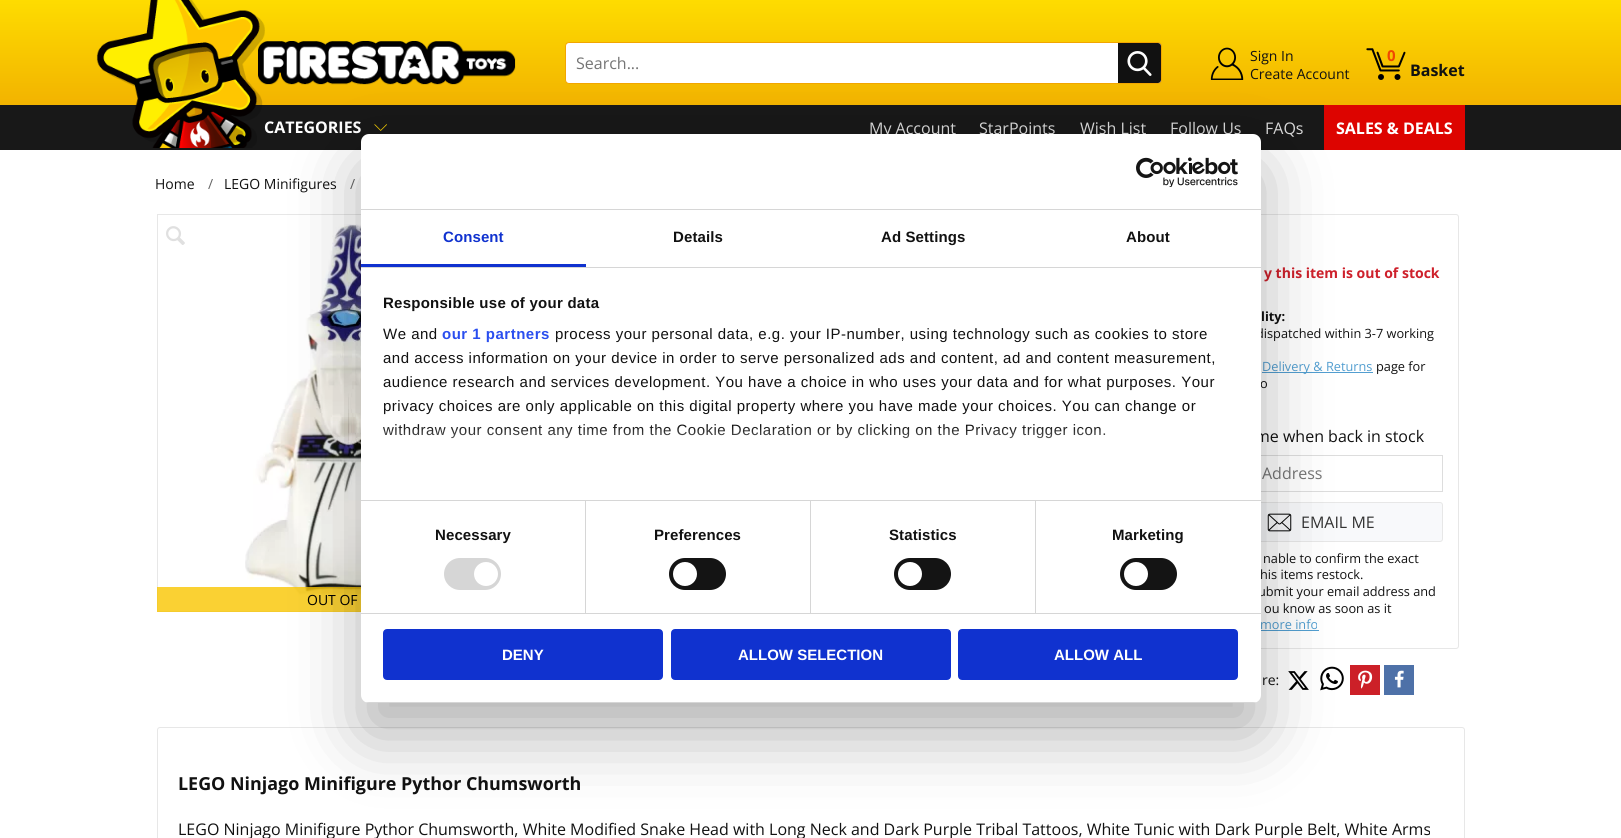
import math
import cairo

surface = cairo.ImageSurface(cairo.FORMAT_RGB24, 1621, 838)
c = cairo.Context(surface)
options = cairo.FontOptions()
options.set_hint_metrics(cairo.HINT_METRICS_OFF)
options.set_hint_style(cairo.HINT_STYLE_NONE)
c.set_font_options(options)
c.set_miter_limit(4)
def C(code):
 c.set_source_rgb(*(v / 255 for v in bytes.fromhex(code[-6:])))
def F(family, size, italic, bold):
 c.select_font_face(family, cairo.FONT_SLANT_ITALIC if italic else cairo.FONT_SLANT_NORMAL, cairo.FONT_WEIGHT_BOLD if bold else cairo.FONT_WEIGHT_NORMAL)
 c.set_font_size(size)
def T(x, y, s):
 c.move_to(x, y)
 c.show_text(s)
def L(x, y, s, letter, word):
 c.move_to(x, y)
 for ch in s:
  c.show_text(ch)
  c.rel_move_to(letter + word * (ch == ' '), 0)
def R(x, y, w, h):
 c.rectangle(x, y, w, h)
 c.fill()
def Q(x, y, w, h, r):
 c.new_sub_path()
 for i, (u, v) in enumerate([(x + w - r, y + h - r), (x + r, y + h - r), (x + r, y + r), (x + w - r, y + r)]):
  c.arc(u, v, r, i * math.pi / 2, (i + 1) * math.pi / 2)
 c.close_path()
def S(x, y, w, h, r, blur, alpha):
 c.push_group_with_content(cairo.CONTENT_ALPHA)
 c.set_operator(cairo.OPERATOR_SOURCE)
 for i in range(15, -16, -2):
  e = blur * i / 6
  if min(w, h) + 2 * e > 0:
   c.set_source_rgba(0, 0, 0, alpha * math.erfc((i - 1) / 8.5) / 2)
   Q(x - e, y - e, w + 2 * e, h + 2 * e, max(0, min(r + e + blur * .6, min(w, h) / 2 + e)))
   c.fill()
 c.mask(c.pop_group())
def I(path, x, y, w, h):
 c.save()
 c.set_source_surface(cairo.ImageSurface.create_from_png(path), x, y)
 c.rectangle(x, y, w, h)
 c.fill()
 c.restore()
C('ffffff')
c.paint()
gradient = cairo.LinearGradient(811,0,811,105)
gradient.add_color_stop_rgba(0,0.996,0.863,0,1)
gradient.add_color_stop_rgba(1,0.949,0.702,0,1)
c.set_source(gradient)
R(0,0,1621,105)
I('2.png',258,41,258,44)
C('181818')
R(0,105,1621,45)
F('Open Sans',16,0,1)
C('ffffff')
T(264,133,'CATEGORIES')
I('1.png',96,0,169,148)
Q(565.5,42.5,596,41,3.5)
c.fill_preserve()
C('f2a500')
c.set_line_width(1)
c.stroke()
F('Open Sans',16,0,0)
C('757575')
T(576,69,'Search...')
C('111111')
c.new_path()
c.move_to(1118,43)
c.line_to(1158,43)
c.curve_to(1159.5,43,1161,44.5,1161,46)
c.line_to(1161,80)
c.curve_to(1161,81.5,1159.5,83,1158,83)
c.line_to(1118,83)
c.close_path()
c.fill()
I('3.png',1127,51,25,25)
I('4.png',1210,47,34,33)
F('Open Sans',14,0,0)
T(1250,61,'Sign In')
T(1250,79,'Create Account')
I('5.png',1366,48,40,32)
F('Open Sans',15,0,1)
C('f14700')
T(1387,61,'0')
F('Open Sans',16,0,1)
C('111111')
T(1410,76,'Basket')
I('6.png',374,124,13,7)
F('Open Sans',16,0,0)
C('dadada')
T(869,134,'My Account')
T(979,134,'StarPoints')
T(1080,134,'Wish List')
T(1170,134,'Follow Us')
T(1265,134,'FAQs')
C('dd0400')
R(1324,105,141,45)
F('Open Sans',16,0,1)
C('ffffff')
T(1336,134,'SALES & DEALS')
F('Open Sans',14,0,0)
C('111111')
T(155,189,'Home')
C('666666')
T(208,189,'/')
C('111111')
T(224,189,'LEGO Minifigures')
C('666666')
T(350,189,'/')
c.rectangle(157.5,214.5,397,397)
C('e7e7e7')
c.stroke()
I('7.png',166,226,19,19)
I('8.png',245,224,116,372)
c.set_source_rgba(0.973,0.776,0,0.8)
R(157,587,204,25)
C('000000')
T(307,605,'OUT OF')
Q(1194.5,214.5,264,434,2.5)
C('e7e7e7')
c.stroke()
F('Open Sans',14,0,1)
C('ce202b')
T(1264,278,'y this item is out of stock')
F('Open Sans',12.75,0,1)
C('111111')
T(1261,321,'lity:')
F('Open Sans',12.75,0,0)
T(1256,338,'dispatched within 3-7 working')
C('529ed0')
R(1262,372,111,1)
T(1262,371,'Delivery & Returns')
C('111111')
T(1376,371,'page for')
T(1260,388,'o')
F('Open Sans',16,0,0)
T(1255,442,'me when back in stock')
c.rectangle(1210.5,455.5,232,36)
C('dddddd')
c.stroke()
C('757575')
T(1262,479,'Address')
C('f8f9fb')
Q(1210.5,502.5,232,39,2.5)
c.fill_preserve()
C('e7e7e7')
c.stroke()
I('9.png',1267,513,25,19)
C('333333')
T(1301,528,'EMAIL ME')
F('Open Sans',12.75,0,0)
C('111111')
T(1263,563,'nable to confirm the exact')
T(1260,579,'his items restock.')
T(1258,596,'ubmit your email address and')
T(1264,613,'ou know as soon as it')
C('529ed0')
T(1260,629,'more info')
R(1260,630,59,1)
F('Open Sans',14,0,0)
C('111111')
T(1262,685,'re:')
I('10.png',1288,671,21,19)
I('11.png',1320,666,24,25)
C('cc2028')
R(1350,665,30,30)
I('12.png',1358,670,15,19)
C('4e71a8')
R(1384,665,30,30)
I('13.png',1394,670,10,18)
Q(157.5,727.5,1307,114,2.5)
C('e7e7e7')
c.stroke()
F('Open Sans',17.9,0,1)
C('111111')
T(178,790,'LEGO Ninjago Minifigure Pythor Chumsworth')
F('Open Sans',16,0,0)
T(178,835,'LEGO Ninjago Minifigure Pythor Chumsworth, White Modified Snake Head with Long Neck and Dark Purple Tribal Tattoos, White Tunic with Dark Purple Belt, White Arms')
C('000000')
S(361,166,900,569,8,34,.3)
C('ffffff')
Q(361,134,900,569,8)
c.fill()
C('d6d6d6')
R(361,209,900,1)
I('14.png',1136,157,102,30)
R(361,267,900,1)
C('1032cf')
R(361,264,225,3)
F('Liberation Sans',15,0,1)
L(443,242,'Consent',.1,0)
C('111111')
L(673,242,'Details',.1,0)
L(881,242,'Ad Settings',.1,0)
L(1126,242,'About',.1,0)
C('d6d6d6')
R(361,500,900,1)
C('111111')
L(383,308,'Responsible use of your data',.25,0)
F('Liberation Sans',15,0,0)
L(383,339,'We and',.5,0)
F('Liberation Sans',15,0,1)
C('2a4eef')
L(442,339,'our 1 partners',.5,0)
F('Liberation Sans',15,0,0)
C('111111')
L(555,339,'process your personal data, e.g. your IP-number, using technology such as cookies to store',.5,0)
L(383,363,'and access information on your device in order to serve personalized ads and content, ad and content measurement,',.5,0)
L(383,387,'audience research and services development. You have a choice in who uses your data and for what purposes. Your',.5,0)
L(383,411,'privacy choices are only applicable on this digital property where you have made your choices. You can change or',.5,0)
L(383,435,'withdraw your consent any time from the Cookie Declaration or by clicking on the Privacy trigger icon.',.5,0)
gradient = cairo.LinearGradient(801,500,801,425)
gradient.add_color_stop_rgba(0,1,1,1,1)
gradient.add_color_stop_rgba(.5,1,1,1,.8)
gradient.add_color_stop_rgba(1,1,1,1,0)
c.set_source(gradient)
R(383,426,722,13)
C('d6d6d6')
R(361,613,900,1)
R(585,501,1,112)
F('Liberation Sans',15,0,1)
C('111111')
L(435,540,'Necessary',.1,0)
C('d6d6d6')
Q(444,558,57,32,16)
c.fill()
C('ffffff')
c.arc(486,574,12,0,2 * math.pi)
c.fill()
C('d6d6d6')
R(810,501,1,112)
C('111111')
L(654,540,'Preferences',.1,0)
C('141414')
Q(669,558,57,32,16)
c.fill()
C('ffffff')
c.arc(685,574,12,0,2 * math.pi)
c.fill()
C('d6d6d6')
R(1035,501,1,112)
C('111111')
L(889,540,'Statistics',.1,0)
C('141414')
Q(894,558,57,32,16)
c.fill()
C('ffffff')
c.arc(910,574,12,0,2 * math.pi)
c.fill()
C('111111')
L(1112,540,'Marketing',.1,0)
C('141414')
Q(1120,558,57,32,16)
c.fill()
C('ffffff')
c.arc(1136,574,12,0,2 * math.pi)
c.fill()
c.save()
Q(361,134,900,569,8)
c.clip()
C('d6d6d6')
R(361,702,900,1)
c.restore()
C('1032cf')
Q(384,630,278,49,3)
c.fill_preserve()
c.set_line_width(2)
c.stroke()
C('ffffff')
T(502,660,'DENY')
C('1032cf')
Q(672,630,278,49,3)
c.fill_preserve()
c.stroke()
C('ffffff')
T(738,660,'ALLOW SELECTION')
C('1032cf')
Q(959,630,278,49,3)
c.fill_preserve()
c.stroke()
C('ffffff')
T(1054,660,'ALLOW ALL')
surface.write_to_png('o.png')
